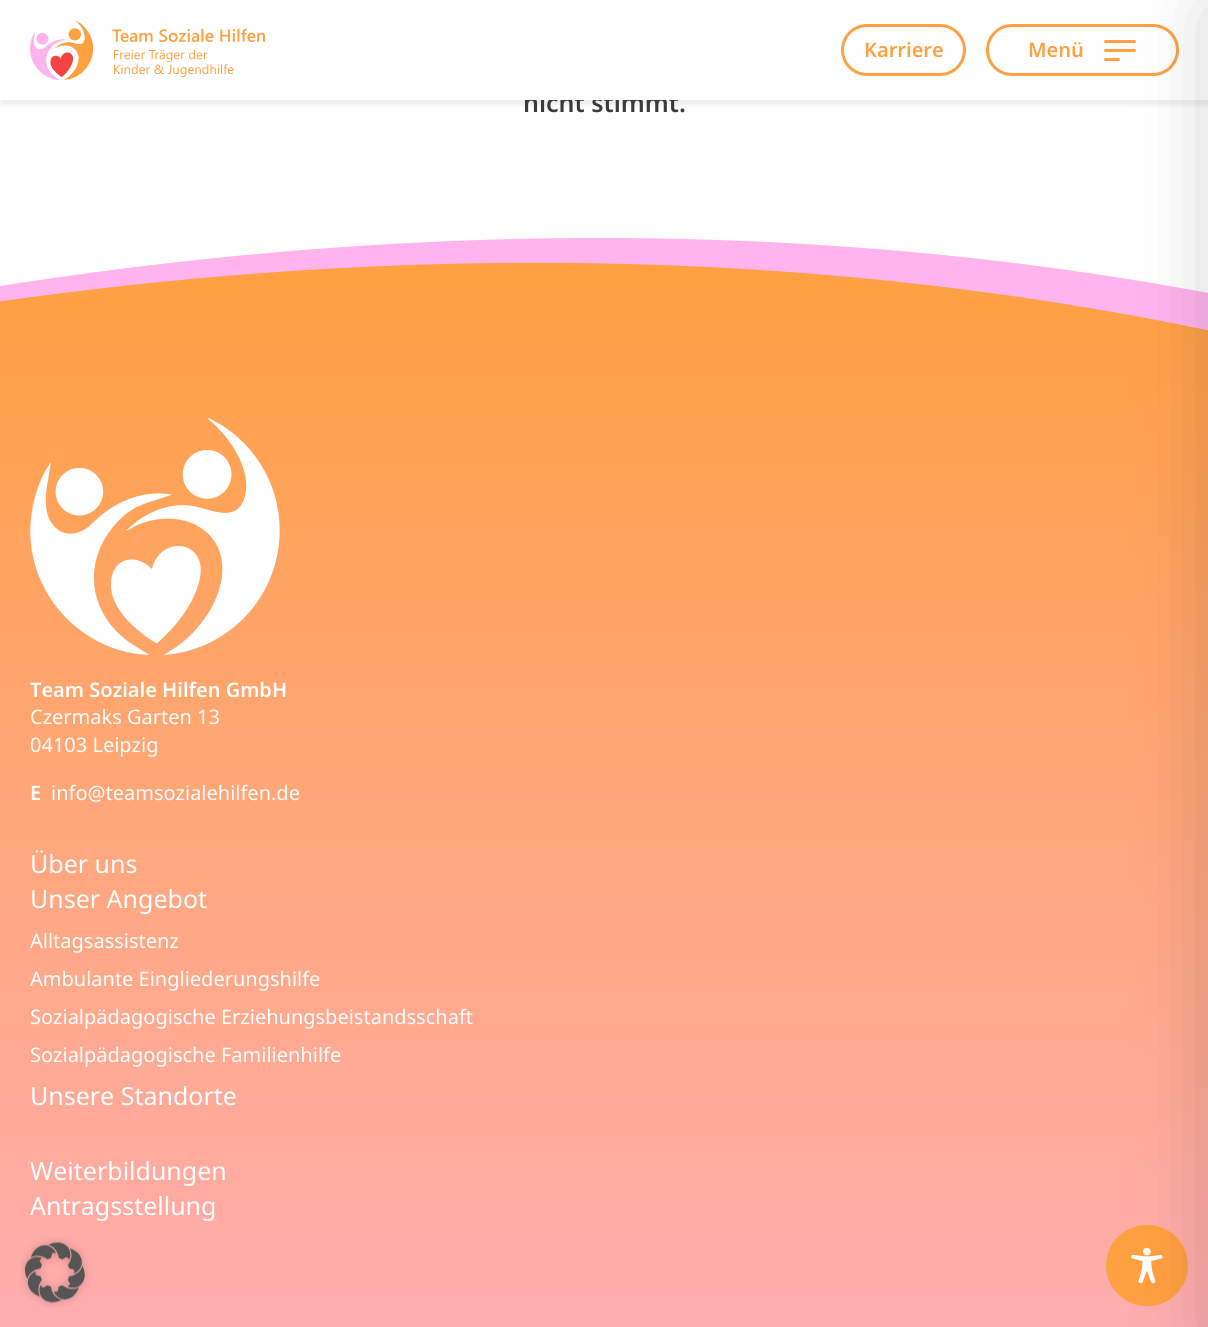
import math
import cairo

surface = cairo.ImageSurface(cairo.FORMAT_RGB24, 1208, 1327)
c = cairo.Context(surface)
options = cairo.FontOptions()
options.set_hint_metrics(cairo.HINT_METRICS_OFF)
options.set_hint_style(cairo.HINT_STYLE_NONE)
c.set_font_options(options)
c.set_miter_limit(4)
def C(code):
 c.set_source_rgb(*(v / 255 for v in bytes.fromhex(code[-6:])))
def F(family, size, italic, bold):
 c.select_font_face(family, cairo.FONT_SLANT_ITALIC if italic else cairo.FONT_SLANT_NORMAL, cairo.FONT_WEIGHT_BOLD if bold else cairo.FONT_WEIGHT_NORMAL)
 c.set_font_size(size)
def T(x, y, s):
 c.move_to(x, y)
 c.show_text(s)
def R(x, y, w, h):
 c.rectangle(x, y, w, h)
 c.fill()
def Q(x, y, w, h, r):
 c.new_sub_path()
 for i, (u, v) in enumerate([(x + w - r, y + h - r), (x + r, y + h - r), (x + r, y + r), (x + w - r, y + r)]):
  c.arc(u, v, r, i * math.pi / 2, (i + 1) * math.pi / 2)
 c.close_path()
def S(x, y, w, h, r, blur, alpha):
 c.push_group_with_content(cairo.CONTENT_ALPHA)
 c.set_operator(cairo.OPERATOR_SOURCE)
 for i in range(15, -16, -2):
  e = blur * i / 6
  if min(w, h) + 2 * e > 0:
   c.set_source_rgba(0, 0, 0, alpha * math.erfc((i - 1) / 8.5) / 2)
   Q(x - e, y - e, w + 2 * e, h + 2 * e, max(0, min(r + e + blur * .6, min(w, h) / 2 + e)))
   c.fill()
 c.mask(c.pop_group())
def I(path, x, y, w, h):
 c.save()
 c.set_source_surface(cairo.ImageSurface.create_from_png(path), x, y)
 c.rectangle(x, y, w, h)
 c.fill()
 c.restore()
C('ffffff')
c.paint()
C('000000')
S(0,5,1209,100,0,2,.07)
F('Noto Sans SemiBold',25,0,0)
C('3b3b3b')
T(523,112,'nicht stimmt.')
C('ffffff')
R(0,3,1208,97)
I('1.png',30,20,235,60)
Q(842.5,25.5,122,49,24.5)
C('ffa041')
c.set_line_width(3)
c.stroke()
F('Noto Sans SemiBold',20,0,0)
T(864,57,'Karriere')
Q(987.5,25.5,190,49,24.5)
c.stroke()
T(1028,57,'Menü')
Q(1104,40,32,3,1.5)
c.fill()
Q(1104,49,32,3,1.5)
c.fill()
Q(1104,58,16,3,1.5)
c.fill()
I('2.png',0,238,1208,1089)
I('3.png',30,418,250,237)
C('ffffff')
T(30,697,'Team Soziale Hilfen GmbH')
F('Noto Sans',20,0,0)
T(30,724,'Czermaks Garten 13')
T(30,752,'04103 Leipzig')
F('Noto Sans SemiBold',20,0,0)
T(30,800,'E')
F('Noto Sans',20,0,0)
T(51,800,'info@teamsozialehilfen.de')
F('Noto Sans',25,0,0)
T(30,873,'Über uns')
T(30,908,'Unser Angebot')
F('Noto Sans',20,0,0)
T(30,948,'Alltagsassistenz')
T(30,986,'Ambulante Eingliederungshilfe')
T(30,1024,'Sozialpädagogische Erziehungsbeistandsschaft')
T(30,1062,'Sozialpädagogische Familienhilfe')
F('Noto Sans',25,0,0)
T(30,1105,'Unsere Standorte')
T(30,1180,'Weiterbildungen')
T(30,1215,'Antragsstellung')
C('ffa041')
Q(1106,1225,82,81,40.5)
c.fill()
I('5.png',1131,1247,32,37)
C('000000')
S(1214,13,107,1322,0,37.5,.2)
I('4.png',20,1237,70,70)
surface.write_to_png('o.png')
